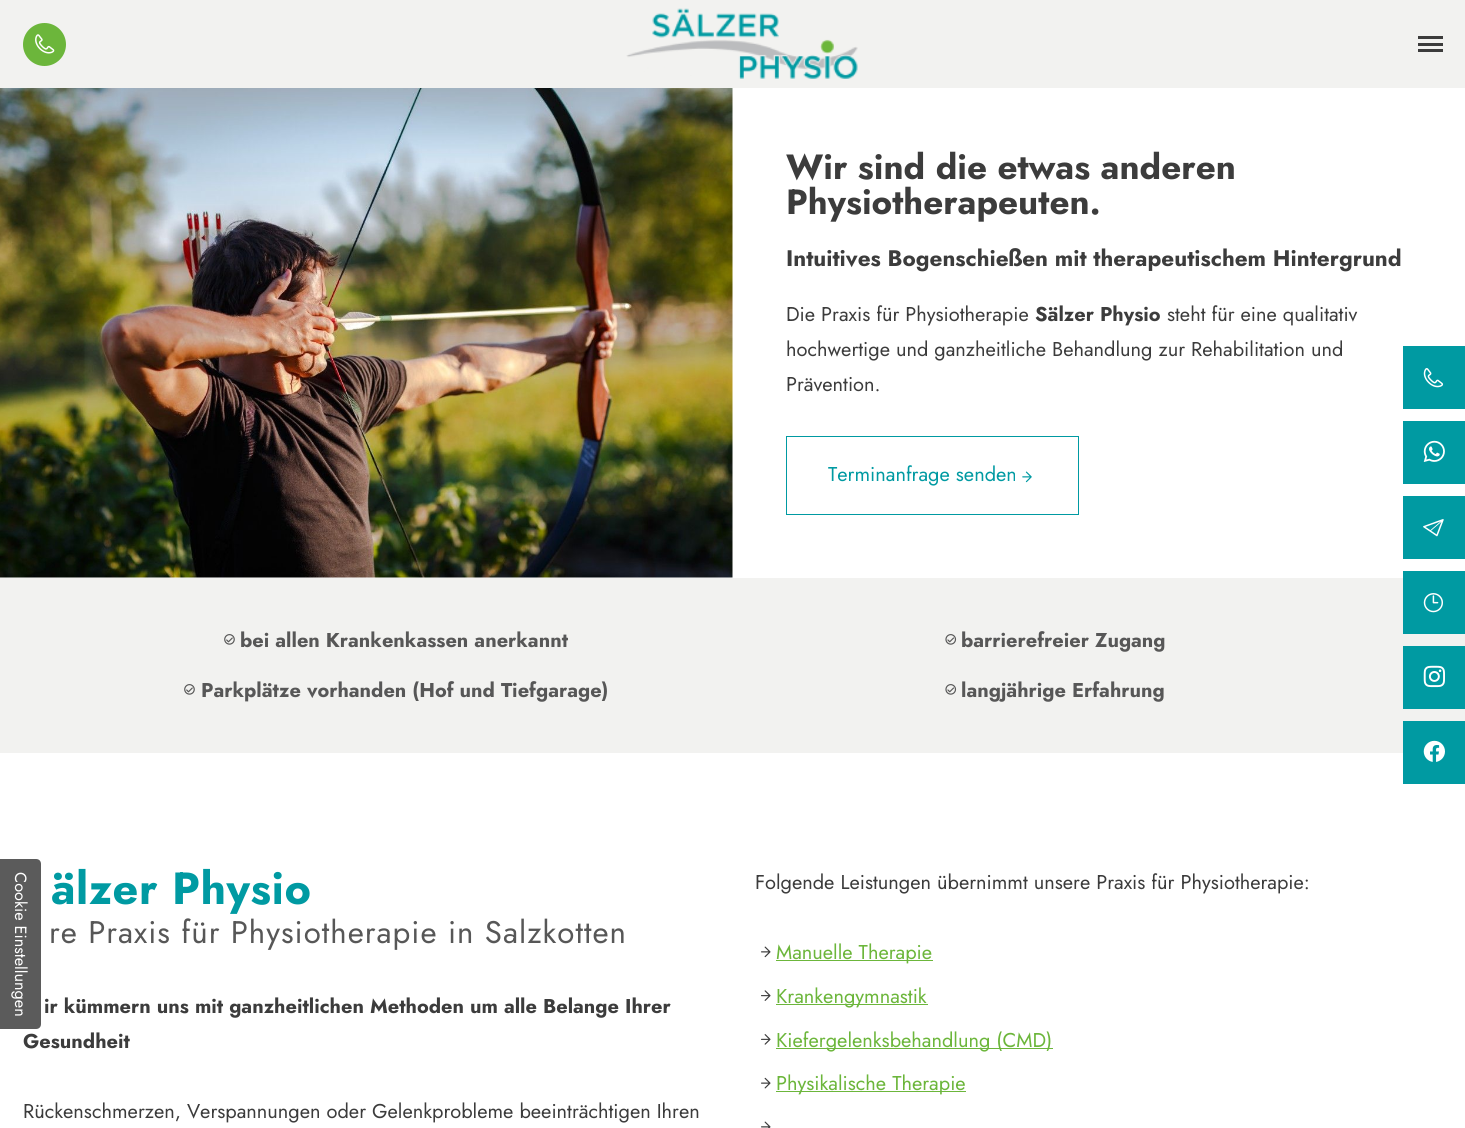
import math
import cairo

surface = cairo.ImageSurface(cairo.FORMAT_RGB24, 1465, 1128)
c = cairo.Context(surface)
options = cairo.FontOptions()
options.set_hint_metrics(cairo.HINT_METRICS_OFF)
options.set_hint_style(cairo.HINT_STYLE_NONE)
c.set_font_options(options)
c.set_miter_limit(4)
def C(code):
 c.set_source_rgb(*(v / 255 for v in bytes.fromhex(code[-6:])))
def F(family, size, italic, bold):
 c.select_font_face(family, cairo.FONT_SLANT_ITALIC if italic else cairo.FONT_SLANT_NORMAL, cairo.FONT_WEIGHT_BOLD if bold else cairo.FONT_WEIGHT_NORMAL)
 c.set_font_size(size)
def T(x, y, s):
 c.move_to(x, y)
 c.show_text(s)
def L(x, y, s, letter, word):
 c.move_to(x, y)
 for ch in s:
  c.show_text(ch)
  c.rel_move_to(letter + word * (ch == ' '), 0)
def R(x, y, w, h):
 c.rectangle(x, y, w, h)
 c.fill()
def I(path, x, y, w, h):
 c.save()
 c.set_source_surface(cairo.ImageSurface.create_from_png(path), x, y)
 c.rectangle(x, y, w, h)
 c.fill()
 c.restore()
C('ffffff')
c.paint()
C('f2f2f0')
R(0,0,1465,88)
C('6cb63b')
c.arc(44.5,44.5,21.5,0,2 * math.pi)
c.fill()
I('1.png',35,34,20,20)
I('2.png',626,8,232,71)
C('3c3c3c')
R(1418,43,25,3)
R(1418,36,25,3)
R(1418,49,25,3)
I('3.png',0,88,733,490)
F('Jost',35,0,1)
T(786,179,'Wir sind die etwas anderen')
T(786,214,'Physiotherapeuten.')
F('Jost',22.5,0,1)
T(786,266,'Intuitives Bogenschießen mit therapeutischem Hintergrund')
F('Jost',20,0,0)
T(786,321,'Die Praxis für Physiotherapie')
F('Jost',20,0,1)
T(1035,321,'Sälzer Physio')
F('Jost',20,0,0)
T(1167,321,'steht für eine qualitativ')
T(786,356,'hochwertige und ganzheitliche Behandlung zur Rehabilitation und')
T(786,391,'Prävention.')
c.rectangle(786.5,436.5,292,78)
C('009aa2')
c.set_line_width(1)
c.stroke()
T(828,481,'Terminanfrage senden')
I('4.png',1022,471,10,12)
C('f2f2f0')
R(0,578,1465,175)
I('5.png',224,634,11,11)
F('Jost',20,0,1)
C('575757')
T(240,647,'bei allen Krankenkassen anerkannt')
I('6.png',945,634,12,11)
T(961,647,'barrierefreier Zugang')
I('5.png',184,684,11,11)
T(201,697,'Parkplätze vorhanden (Hof und Tiefgarage)')
I('6.png',945,684,12,11)
T(961,697,'langjährige Erfahrung')
F('Jost',45,0,1)
C('009aa2')
L(51,904,'älzer Physio',.5,0)
F('Jost',31.25,0,0)
C('575757')
L(49,943,'re Praxis für Physiotherapie in Salzkotten',1,0)
F('Jost',20,0,1)
C('3c3c3c')
T(44,1013,'ir kümmern uns mit ganzheitlichen Methoden um alle Belange Ihrer')
T(23,1048,'Gesundheit')
F('Jost',20,0,0)
T(23,1118,'Rückenschmerzen, Verspannungen oder Gelenkprobleme beeinträchtigen Ihren')
T(755,889,'Folgende Leistungen übernimmt unsere Praxis für Physiotherapie:')
I('7.png',761,946,10,12)
C('6cb63b')
R(776,960,157,1)
T(776,959,'Manuelle Therapie')
I('8.png',761,990,10,11)
R(776,1004,152,1)
T(776,1003,'Krankengymnastik')
I('9.png',761,1034,10,11)
R(776,1048,277,1)
T(776,1047,'Kiefergelenksbehandlung (CMD)')
I('10.png',761,1077,10,12)
R(776,1091,190,1)
T(776,1090,'Physikalische Therapie')
I('11.png',761,1121,10,7)
C('009aa2')
R(1403,346,62,63)
I('12.png',1423,368,21,20)
R(1403,421,62,63)
I('13.png',1423,440,22,22)
R(1403,496,62,63)
I('14.png',1423,519,21,18)
R(1403,571,62,63)
I('15.png',1423,593,20,20)
R(1403,646,62,63)
I('16.png',1423,665,22,23)
R(1403,721,62,63)
I('17.png',1423,740,22,22)
c.set_source_rgba(0.2,0.2,0.2,0.8)
c.new_path()
c.move_to(41,864)
c.line_to(41,1024)
c.curve_to(41,1027,39,1029,36,1029)
c.line_to(0,1029)
c.line_to(0,859)
c.line_to(36,859)
c.curve_to(39,859,41,861,41,864)
c.close_path()
c.fill()
F('Jost',16.25,0,0)
C('ffffff')
c.save()
c.translate(15,872)
c.rotate(90 * math.pi / 180)
T(0,0,'Cookie Einstellungen')
c.restore()
surface.write_to_png('o.png')
